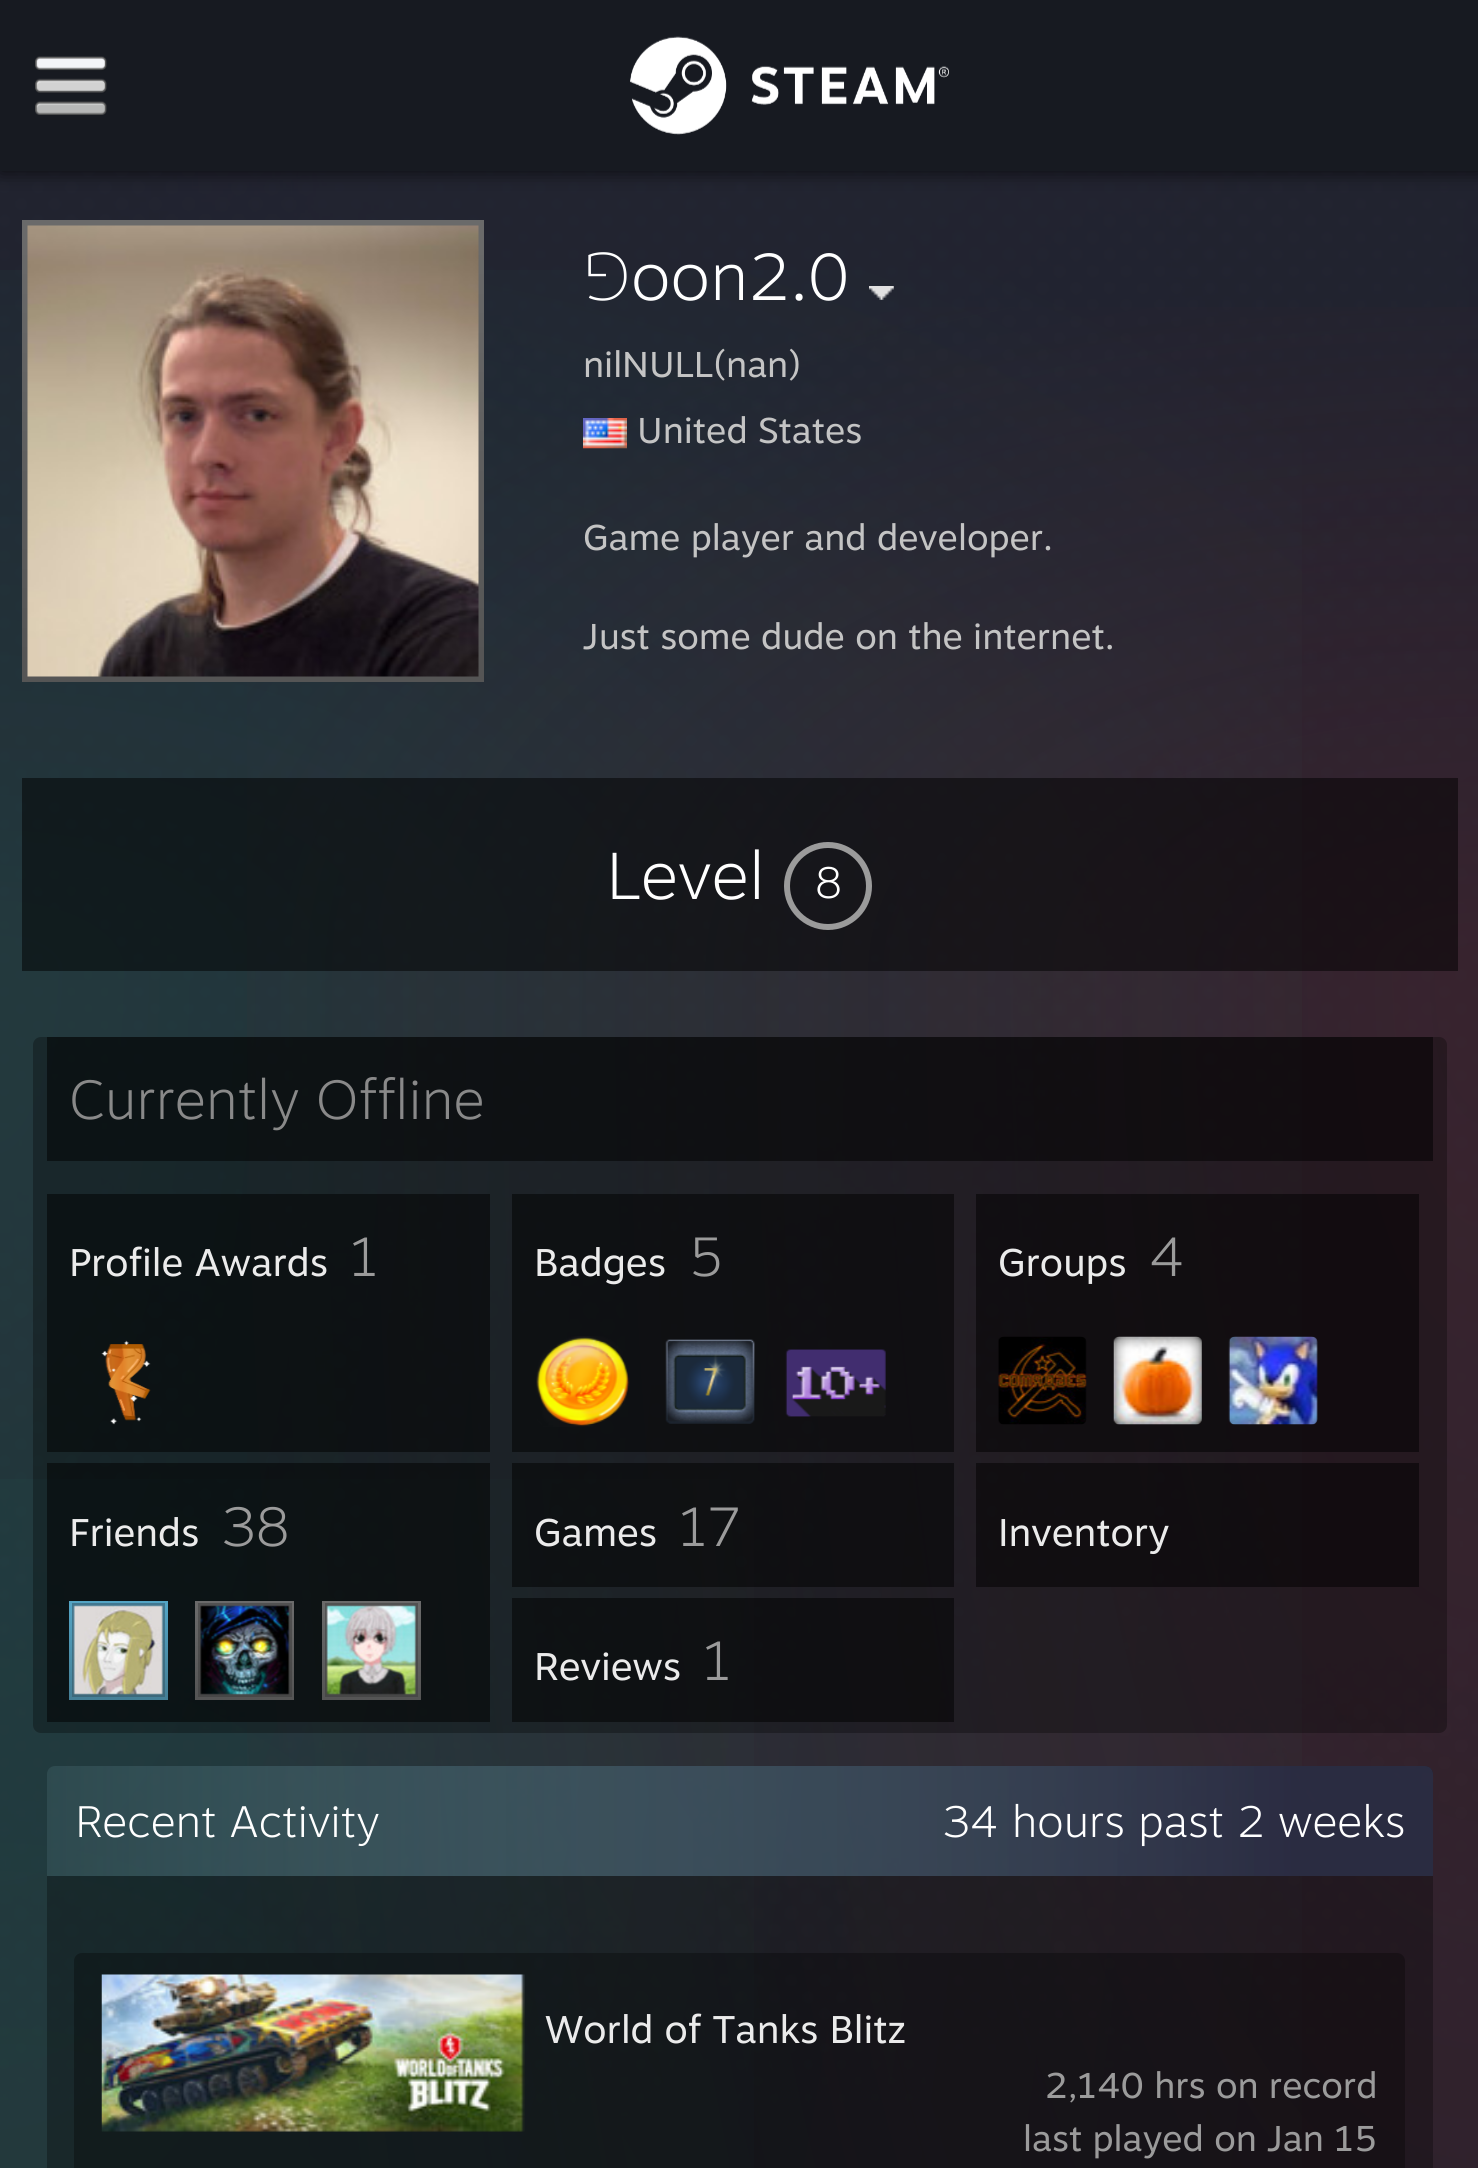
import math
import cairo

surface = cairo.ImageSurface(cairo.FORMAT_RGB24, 1478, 2168)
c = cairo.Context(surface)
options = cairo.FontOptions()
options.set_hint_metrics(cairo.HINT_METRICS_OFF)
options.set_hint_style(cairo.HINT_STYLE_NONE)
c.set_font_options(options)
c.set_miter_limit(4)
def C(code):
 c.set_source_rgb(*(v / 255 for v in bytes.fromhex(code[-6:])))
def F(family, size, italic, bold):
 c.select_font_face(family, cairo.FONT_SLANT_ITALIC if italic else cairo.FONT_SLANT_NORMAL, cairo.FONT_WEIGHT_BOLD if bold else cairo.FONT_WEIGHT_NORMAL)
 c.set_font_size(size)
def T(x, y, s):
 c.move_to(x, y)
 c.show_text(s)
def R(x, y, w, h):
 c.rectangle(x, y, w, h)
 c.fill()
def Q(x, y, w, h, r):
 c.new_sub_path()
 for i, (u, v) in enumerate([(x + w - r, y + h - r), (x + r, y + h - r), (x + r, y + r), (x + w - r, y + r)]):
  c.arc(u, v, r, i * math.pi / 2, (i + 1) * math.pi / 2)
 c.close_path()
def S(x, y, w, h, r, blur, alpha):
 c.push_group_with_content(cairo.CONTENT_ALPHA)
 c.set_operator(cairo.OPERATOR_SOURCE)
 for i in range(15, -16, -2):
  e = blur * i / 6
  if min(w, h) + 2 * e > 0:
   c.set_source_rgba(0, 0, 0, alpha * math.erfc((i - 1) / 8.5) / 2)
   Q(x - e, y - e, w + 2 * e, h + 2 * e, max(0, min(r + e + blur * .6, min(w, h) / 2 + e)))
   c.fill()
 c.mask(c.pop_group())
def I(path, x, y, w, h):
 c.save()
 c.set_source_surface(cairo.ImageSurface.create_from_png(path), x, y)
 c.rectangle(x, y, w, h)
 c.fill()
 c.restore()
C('ffffff')
c.paint()
I('3.png',0,171,1478,1997)
c.set_source_rgba(0.133,0.137,0.188,0.93)
R(0,171,1478,800)
C('000000')
S(0,0,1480,171,0,9.5,.75)
C('171a21')
R(0,0,1478,171)
I('1.png',35,56,72,59)
I('2.png',630,36,319,99)
gradient = cairo.RadialGradient(0,0,0,0,0,1)
gradient.set_matrix(cairo.Matrix(1 / 2092, 0, 0, 1 / 1132, -1 * 0 / 2092, -1 * 971 / 1132))
gradient.add_color_stop_rgba(0,0.196,1,0.757,.1)
gradient.add_color_stop_rgba(.79,0.196,1,0.757,0)
c.set_source(gradient)
R(0,270,1302,701)
gradient = cairo.RadialGradient(0,0,0,0,0,1)
gradient.set_matrix(cairo.Matrix(1 / 1480, 0, 0, 1 / 800, -1 * 1480 / 1480, -1 * 971 / 800))
gradient.add_color_stop_rgba(0,0.427,0.149,0.173,.3)
gradient.add_color_stop_rgba(.93,0.427,0.149,0.173,0)
c.set_source(gradient)
R(247,307,1231,664)
gradient = cairo.LinearGradient(253,220,253,682)
gradient.add_color_stop_rgba(.05,0.416,0.416,0.416,1)
gradient.add_color_stop_rgba(.95,0.333,0.333,0.333,1)
c.set_source(gradient)
R(22,220,462,462)
I('4.png',27,225,452,452)
F('Noto Sans ExtraLight',66,0,0)
C('ffffff')
T(583,300,'⅁')
F('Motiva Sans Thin',66,0,0)
T(631,300,'oon2.0')
I('5.png',869,286,25,14)
F('Motiva Sans',35.75,0,0)
C('c4c4c4')
T(583,377,'nilNULL(nan)')
I('6.png',583,418,44,31)
T(637,443,'United States')
T(583,550,'Game player and developer.')
T(583,649,'Just some dude on the internet.')
c.set_source_rgba(0,0,0,0.5)
R(22,778,1436,193)
F('Motiva Sans Thin',66,0,0)
C('ffffff')
T(606,899,'Level')
c.new_path()
c.arc(828,886,41,0,2 * math.pi)
C('9b9b9b')
c.set_line_width(6)
c.stroke()
F('Motiva Sans Thin',44,0,0)
C('ffffff')
T(815,898,'8')
c.set_source_rgba(0.133,0.137,0.188,0.93)
R(0,971,1478,1197)
gradient = cairo.RadialGradient(0,0,0,0,0,1)
gradient.set_matrix(cairo.Matrix(1 / 2092, 0, 0, 1 / 5834, -1 * 0 / 2092, -1 * 5096 / 5834))
gradient.add_color_stop_rgba(0,0.196,1,0.757,.1)
gradient.add_color_stop_rgba(.79,0.196,1,0.757,0)
c.set_source(gradient)
R(0,1479,754,689)
gradient = cairo.RadialGradient(0,0,0,0,0,1)
gradient.set_matrix(cairo.Matrix(1 / 2092, 0, 0, 1 / 5834, -1 * 0 / 2092, -1 * 971 / 5834))
gradient.add_color_stop_rgba(0,0.196,1,0.757,.1)
gradient.add_color_stop_rgba(.79,0.196,1,0.757,0)
c.set_source(gradient)
R(0,971,1302,1197)
gradient = cairo.RadialGradient(0,0,0,0,0,1)
gradient.set_matrix(cairo.Matrix(1 / 1480, 0, 0, 1 / 4125, -1 * 1480 / 1480, -1 * 971 / 4125))
gradient.add_color_stop_rgba(0,0.427,0.149,0.173,.3)
gradient.add_color_stop_rgba(.93,0.427,0.149,0.173,0)
c.set_source(gradient)
R(247,971,1231,1197)
c.set_source_rgba(0,0,0,0.3)
Q(33,1037,1414,696,8)
c.fill()
c.set_source_rgba(0,0,0,0.5)
R(47,1037,1386,124)
F('Motiva Sans Thin',55,0,0)
C('898989')
T(69,1119,'Currently Offline')
c.set_source_rgba(0,0,0,0.5)
R(47,1194,443,258)
F('Motiva Sans',38.5,0,0)
C('ebebeb')
T(69,1276,'Profile Awards')
F('Motiva Sans Thin',55,0,0)
C('9b9b9b')
T(350,1276,'1')
I('7.png',101,1340,50,85)
c.set_source_rgba(0,0,0,0.5)
R(976,1194,443,258)
F('Motiva Sans',38.5,0,0)
C('ebebeb')
T(998,1276,'Groups')
F('Motiva Sans Thin',55,0,0)
C('9b9b9b')
T(1149,1276,'4')
I('8.png',998,1336,89,89)
I('9.png',1113,1336,89,89)
I('10.png',1228,1336,90,89)
c.set_source_rgba(0,0,0,0.5)
R(47,1463,443,259)
F('Motiva Sans',38.5,0,0)
C('ebebeb')
T(69,1546,'Friends')
F('Motiva Sans Thin',55,0,0)
C('9b9b9b')
T(222,1546,'38')
gradient = cairo.LinearGradient(118,1601,118,1700)
gradient.add_color_stop_rgba(.05,0.325,0.643,0.769,1)
gradient.add_color_stop_rgba(.95,0.271,0.502,0.592,1)
c.set_source(gradient)
R(69,1601,99,99)
gradient = cairo.LinearGradient(118,1603,118,1697)
gradient.add_color_stop_rgba(.05,0.255,0.467,0.561,1)
gradient.add_color_stop_rgba(.95,0.239,0.412,0.482,1)
c.set_source(gradient)
R(72,1603,93,94)
I('11.png',73,1605,90,90)
gradient = cairo.LinearGradient(245,1601,245,1700)
gradient.add_color_stop_rgba(.05,0.416,0.416,0.416,1)
gradient.add_color_stop_rgba(.95,0.333,0.333,0.333,1)
c.set_source(gradient)
R(195,1601,99,99)
gradient = cairo.LinearGradient(245,1603,245,1697)
gradient.add_color_stop_rgba(.05,0.318,0.318,0.318,1)
gradient.add_color_stop_rgba(.95,0.278,0.278,0.278,1)
c.set_source(gradient)
R(198,1603,94,94)
I('12.png',200,1605,90,90)
gradient = cairo.LinearGradient(371,1601,371,1700)
gradient.add_color_stop_rgba(.05,0.416,0.416,0.416,1)
gradient.add_color_stop_rgba(.95,0.333,0.333,0.333,1)
c.set_source(gradient)
R(322,1601,99,99)
gradient = cairo.LinearGradient(371,1603,371,1697)
gradient.add_color_stop_rgba(.05,0.318,0.318,0.318,1)
gradient.add_color_stop_rgba(.95,0.278,0.278,0.278,1)
c.set_source(gradient)
R(325,1603,93,94)
I('13.png',326,1605,90,90)
c.set_source_rgba(0,0,0,0.5)
R(512,1194,442,258)
F('Motiva Sans',38.5,0,0)
C('ebebeb')
T(534,1276,'Badges')
F('Motiva Sans Thin',55,0,0)
C('9b9b9b')
T(688,1276,'5')
I('14.png',536,1336,94,91)
I('15.png',665,1339,90,85)
I('16.png',785,1349,101,68)
c.set_source_rgba(0,0,0,0.5)
R(512,1463,442,124)
F('Motiva Sans',38.5,0,0)
C('ebebeb')
T(534,1546,'Games')
F('Motiva Sans Thin',55,0,0)
C('9b9b9b')
T(679,1546,'17')
c.set_source_rgba(0,0,0,0.5)
R(976,1463,443,124)
F('Motiva Sans',38.5,0,0)
C('ebebeb')
T(998,1546,'Inventory')
c.set_source_rgba(0,0,0,0.5)
R(512,1598,442,124)
C('ebebeb')
T(534,1680,'Reviews')
F('Motiva Sans Thin',55,0,0)
C('9b9b9b')
T(703,1680,'1')
c.set_source_rgba(0,0,0,0.3)
Q(47,1766,1386,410,8)
c.fill()
gradient = cairo.LinearGradient(47,1821,1433,1821)
gradient.add_color_stop_rgba(0,0.451,0.678,0.722,.25)
gradient.add_color_stop_rgba(.9,0.169,0.176,0.267,.93)
c.set_source(gradient)
c.new_path()
c.move_to(55,1766)
c.line_to(1425,1766)
c.curve_to(1429.5,1766,1433,1769.5,1433,1774)
c.line_to(1433,1876)
c.line_to(47,1876)
c.line_to(47,1774)
c.curve_to(47,1769.5,50.5,1766,55,1766)
c.close_path()
c.fill()
F('Motiva Sans Thin',44,0,0)
C('ffffff')
T(75,1837,'Recent Activity')
T(943,1837,'34 hours past 2 weeks')
c.set_source_rgba(0,0,0,0.3)
Q(74,1953,1331,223,8)
c.fill()
I('17.png',101,1974,424,158)
F('Motiva Sans',38.5,0,0)
C('ebebeb')
T(545,2043,'World of Tanks Blitz')
F('Motiva Sans',35.75,0,0)
C('9b9b9b')
T(1045,2098,'2,140 hrs on record')
T(1023,2151,'last played on Jan 15')
surface.write_to_png('o.png')
